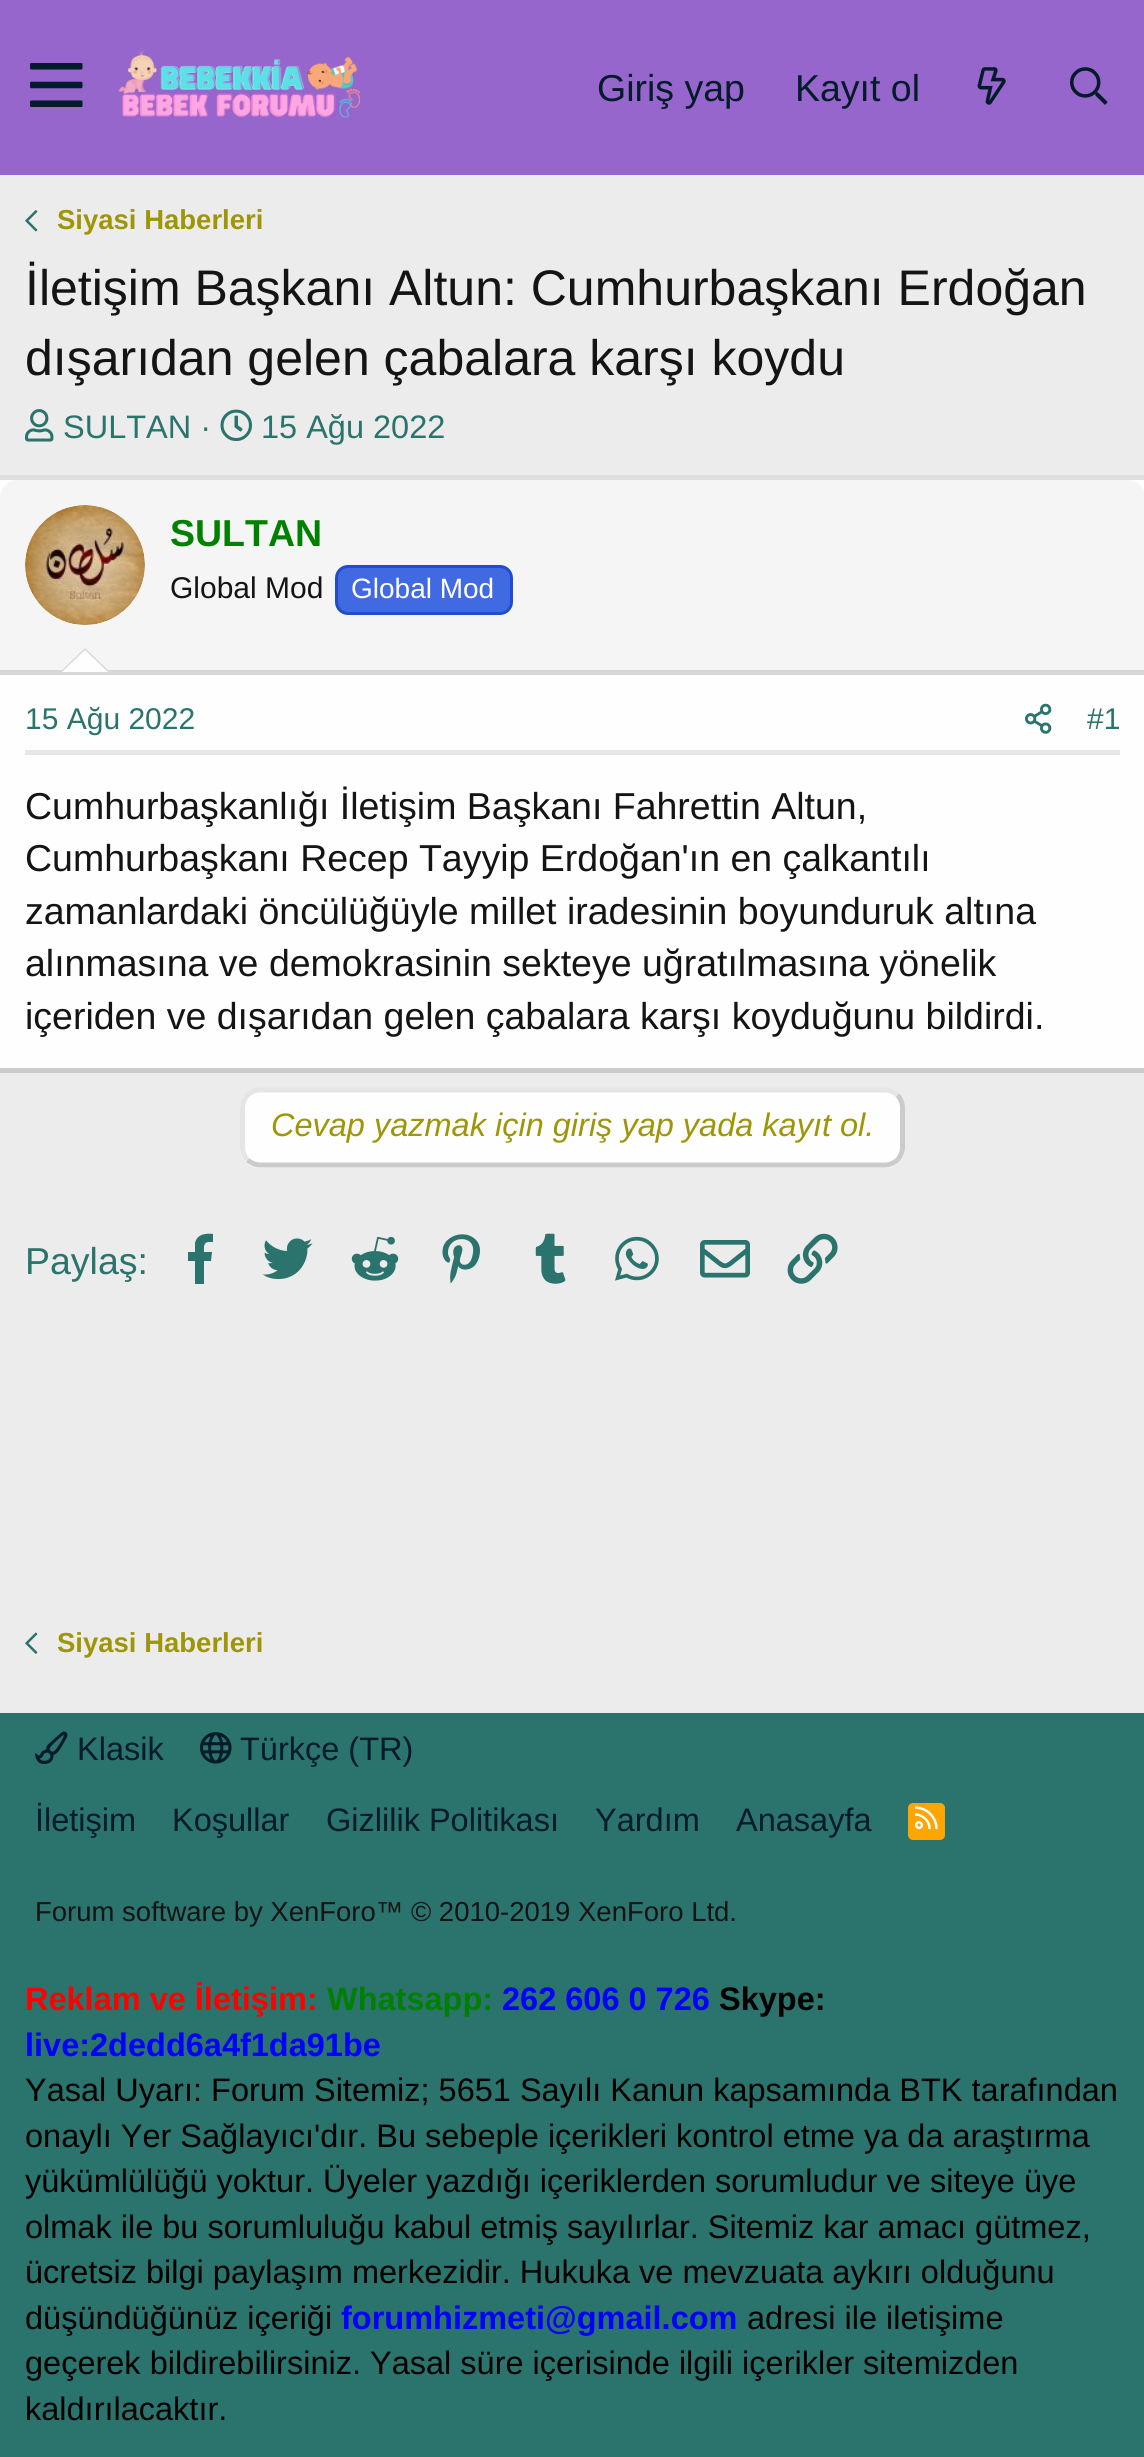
import math
import cairo

surface = cairo.ImageSurface(cairo.FORMAT_RGB24, 1144, 2457)
c = cairo.Context(surface)
options = cairo.FontOptions()
options.set_hint_metrics(cairo.HINT_METRICS_OFF)
options.set_hint_style(cairo.HINT_STYLE_NONE)
c.set_font_options(options)
c.set_miter_limit(4)
def C(code):
 c.set_source_rgb(*(v / 255 for v in bytes.fromhex(code[-6:])))
def F(family, size, italic, bold):
 c.select_font_face(family, cairo.FONT_SLANT_ITALIC if italic else cairo.FONT_SLANT_NORMAL, cairo.FONT_WEIGHT_BOLD if bold else cairo.FONT_WEIGHT_NORMAL)
 c.set_font_size(size)
def T(x, y, s):
 c.move_to(x, y)
 c.show_text(s)
def R(x, y, w, h):
 c.rectangle(x, y, w, h)
 c.fill()
def Q(x, y, w, h, r):
 c.new_sub_path()
 for i, (u, v) in enumerate([(x + w - r, y + h - r), (x + r, y + h - r), (x + r, y + r), (x + w - r, y + r)]):
  c.arc(u, v, r, i * math.pi / 2, (i + 1) * math.pi / 2)
 c.close_path()
def I(path, x, y, w, h):
 c.save()
 c.set_source_surface(cairo.ImageSurface.create_from_png(path), x, y)
 c.rectangle(x, y, w, h)
 c.fill()
 c.restore()
C('ececec')
c.paint()
C('9666cc')
R(0,0,1144,175)
I('1.png',30,63,53,44)
I('2.png',118,50,243,68)
F('Liberation Sans',37.5,0,0)
C('041b2a')
T(597,101,'Giriş yap')
T(795,101,'Kayıt ol')
I('3.png',977,67,29,38)
I('4.png',1070,67,38,38)
I('5.png',25,210,13,22)
F('Liberation Sans',27.5,0,1)
C('9e9607')
T(57,229,'Siyasi Haberleri')
F('Liberation Sans',50,0,0)
C('141414')
T(25,305,'İletişim Başkanı Altun: Cumhurbaşkanı Erdoğan')
T(25,375,'dışarıdan gelen çabalara karşı koydu')
I('6.png',25,409,29,33)
F('Liberation Sans',32.5,0,0)
C('2b736d')
T(63,438,'SULTAN ·')
I('7.png',220,409,32,33)
T(261,438,'15 Ağu 2022')
C('fefefe')
R(0,480,1144,588)
C('dfdfdf')
R(0,475,1144,5)
C('cbcbcb')
R(0,1068,1144,5)
C('f5f5f5')
c.new_path()
c.move_to(18,480)
c.line_to(1127,480)
c.curve_to(1137,480,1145,488,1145,498)
c.line_to(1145,675)
c.line_to(0,675)
c.line_to(0,498)
c.curve_to(0,488,8,480,18,480)
c.close_path()
c.fill()
C('d8d8d8')
R(0,670,1144,5)
C('fefefe')
c.arc(85,565,60,0,2 * math.pi)
c.fill()
I('8.png',25,505,120,120)
F('Liberation Sans',37.5,0,1)
C('008000')
T(170,546,'SULTAN')
F('Liberation Sans',30,0,0)
C('141414')
T(170,598,'Global Mod')
C('4169e1')
Q(336.5,566.5,175,47,11.5)
c.fill_preserve()
C('214cce')
c.set_line_width(3)
c.stroke()
F('Liberation Sans',28,0,0)
C('ffffff')
T(351,598,'Global Mod')
C('d8d8d8')
c.new_path()
c.move_to(110,672)
c.line_to(60,672)
c.line_to(85,648)
c.close_path()
c.fill()
C('fefefe')
c.new_path()
c.move_to(108,672)
c.line_to(62,672)
c.line_to(85,650)
c.close_path()
c.fill()
C('e7e7e7')
R(25,750,1095,5)
F('Liberation Sans',30,0,0)
C('2b736d')
T(25,729,'15 Ağu 2022')
I('9.png',1025,703,27,31)
T(1087,729,'#1')
F('Liberation Sans',37.5,0,0)
C('141414')
T(25,819,'Cumhurbaşkanlığı İletişim Başkanı Fahrettin Altun,')
T(25,871,'Cumhurbaşkanı Recep Tayyip Erdoğan\'ın en çalkantılı')
T(25,924,'zamanlardaki öncülüğüyle millet iradesinin boyunduruk altına')
T(25,976,'alınmasına ve demokrasinin sekteye uğratılmasına yönelik')
T(25,1029,'içeriden ve dışarıdan gelen çabalara karşı koyduğunu bildirdi.')
C('fefefe')
Q(240,1088,665,80,20)
c.fill()
c.new_path()
c.move_to(897.5,1095)
c.curve_to(900.5,1098.5,902.5,1103,902.5,1107.5)
c.line_to(902.5,1147.5)
c.curve_to(902.5,1152,900.5,1156.5,897.5,1160)
c.curve_to(894,1163,889.5,1165,885,1165)
c.line_to(260,1165)
c.curve_to(255.5,1165,251,1163,247.5,1160)
C('cbcbcb')
c.set_line_width(5)
c.stroke()
c.new_path()
c.move_to(247.5,1160)
c.curve_to(244.5,1156.5,242.5,1152,242.5,1147.5)
c.line_to(242.5,1107.5)
c.curve_to(242.5,1103,244.5,1098.5,247.5,1095)
c.curve_to(251,1092,255.5,1090,260,1090)
c.line_to(885,1090)
c.curve_to(889.5,1090,894,1092,897.5,1095)
C('e5e5e5')
c.stroke()
F('Liberation Sans',32.5,1,0)
C('9e9607')
T(271,1136,'Cevap yazmak için giriş yap yada kayıt ol.')
F('Liberation Sans',37.5,0,0)
C('2b736d')
T(25,1274,'Paylaş:')
c.new_path()
c.move_to(209,1242)
c.curve_to(203,1242,204,1248,204,1252)
c.line_to(212,1252)
c.line_to(211,1261)
c.line_to(204,1261)
c.line_to(204,1284)
c.line_to(195,1284)
c.line_to(195,1261)
c.line_to(188,1261)
c.line_to(188,1252)
c.line_to(195,1252)
c.line_to(195,1243)
c.curve_to(197,1234,206,1233,213,1234)
c.line_to(213,1242)
c.close_path()
c.fill()
I('10.png',262,1238,51,42)
I('11.png',351,1236,48,45)
I('12.png',442,1234,38,50)
I('13.png',535,1233,31,51)
I('14.png',615,1236,44,45)
I('15.png',700,1240,50,38)
I('16.png',787,1233,51,51)
I('17.png',25,1632,13,22)
F('Liberation Sans',27.5,0,1)
C('9e9607')
T(57,1652,'Siyasi Haberleri')
C('2b736d')
R(0,1713,1144,744)
I('18.png',35,1731,33,33)
F('Liberation Sans',32.5,0,0)
C('041b2a')
T(77,1760,'Klasik')
I('19.png',200,1732,32,32)
T(240,1760,'Türkçe (TR)')
T(35,1831,'İletişim')
T(172,1831,'Koşullar')
T(326,1831,'Gizlilik Politikası')
T(595,1831,'Yardım')
T(736,1831,'Anasayfa')
C('ffa500')
Q(908,1803,37,37,5)
c.fill()
I('20.png',915,1806,23,24)
F('Liberation Sans',27.5,0,0)
C('141414')
T(35,1921,'Forum software by XenForo™ © 2010-2019 XenForo Ltd.')
F('Liberation Sans',32.5,0,1)
C('ff0000')
T(25,2010,'Reklam ve İletişim:')
C('008000')
T(327,2010,'Whatsapp:')
C('0000ff')
T(502,2010,'262 606 0 726')
C('000000')
T(719,2010,'Skype:')
C('0000ff')
T(25,2056,'live:2dedd6a4f1da91be')
F('Liberation Sans',32.5,0,0)
C('000000')
T(25,2101,'Yasal Uyarı: Forum Sitemiz; 5651 Sayılı Kanun kapsamında BTK tarafından')
T(25,2147,'onaylı Yer Sağlayıcı\'dır. Bu sebeple içerikleri kontrol etme ya da araştırma')
T(25,2192,'yükümlülüğü yoktur. Üyeler yazdığı içeriklerden sorumludur ve siteye üye')
T(25,2238,'olmak ile bu sorumluluğu kabul etmiş sayılırlar. Sitemiz kar amacı gütmez,')
T(25,2283,'ücretsiz bilgi paylaşım merkezidir. Hukuka ve mevzuata aykırı olduğunu')
T(25,2329,'düşündüğünüz içeriği')
F('Liberation Sans',32.5,0,1)
C('0000ff')
T(341,2329,'forumhizmeti@gmail.com')
F('Liberation Sans',32.5,0,0)
C('000000')
T(747,2329,'adresi ile iletişime')
T(25,2374,'geçerek bildirebilirsiniz. Yasal süre içerisinde ilgili içerikler sitemizden')
T(25,2420,'kaldırılacaktır.')
surface.write_to_png('o.png')
